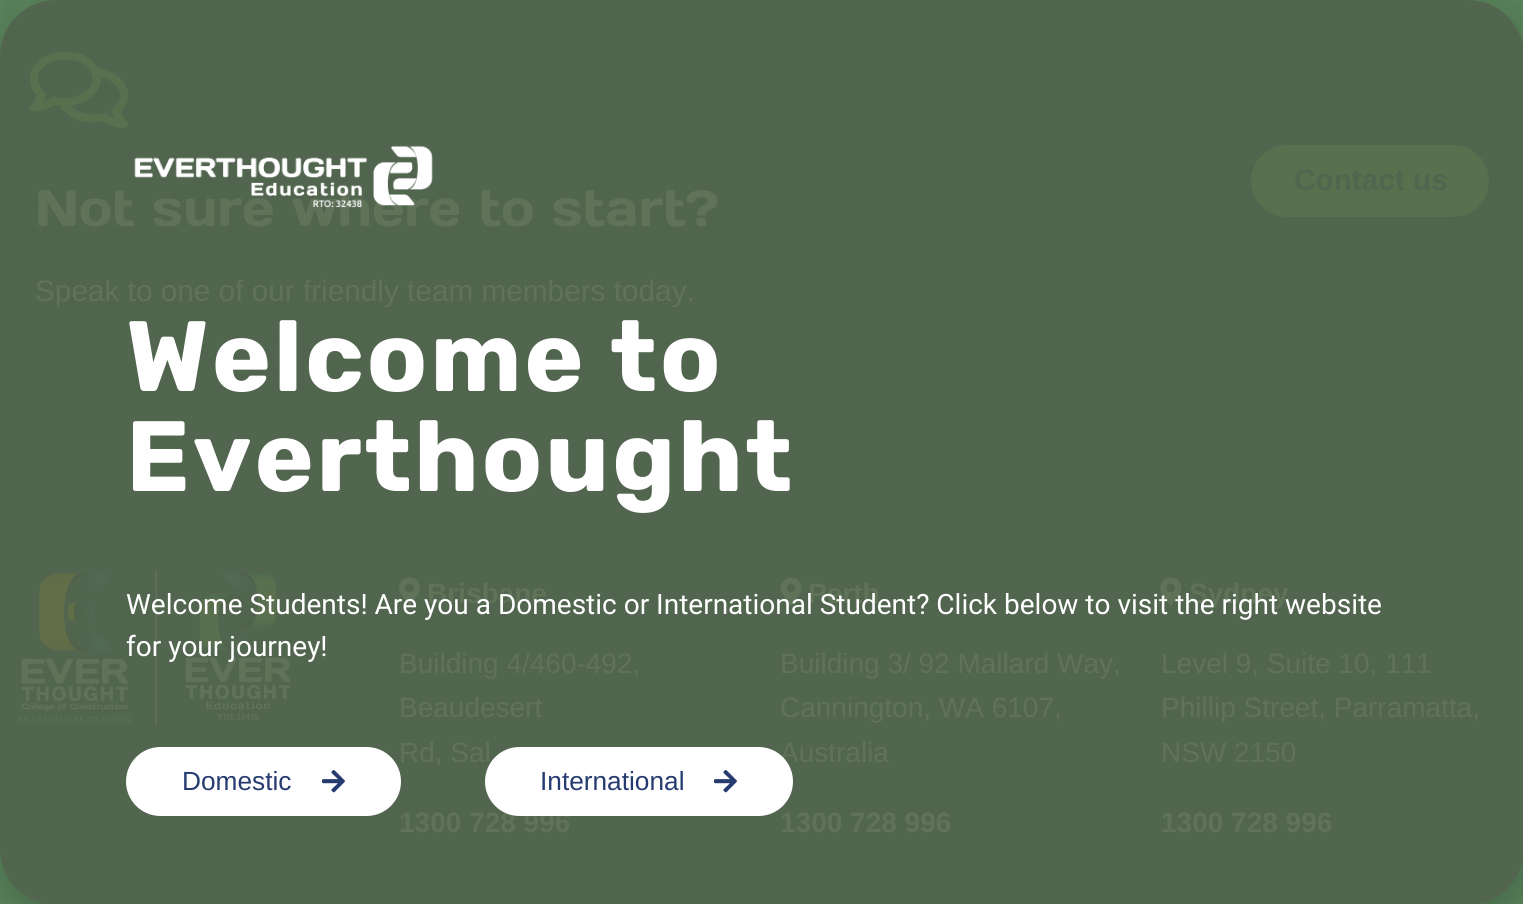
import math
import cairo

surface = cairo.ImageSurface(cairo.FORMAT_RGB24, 1523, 904)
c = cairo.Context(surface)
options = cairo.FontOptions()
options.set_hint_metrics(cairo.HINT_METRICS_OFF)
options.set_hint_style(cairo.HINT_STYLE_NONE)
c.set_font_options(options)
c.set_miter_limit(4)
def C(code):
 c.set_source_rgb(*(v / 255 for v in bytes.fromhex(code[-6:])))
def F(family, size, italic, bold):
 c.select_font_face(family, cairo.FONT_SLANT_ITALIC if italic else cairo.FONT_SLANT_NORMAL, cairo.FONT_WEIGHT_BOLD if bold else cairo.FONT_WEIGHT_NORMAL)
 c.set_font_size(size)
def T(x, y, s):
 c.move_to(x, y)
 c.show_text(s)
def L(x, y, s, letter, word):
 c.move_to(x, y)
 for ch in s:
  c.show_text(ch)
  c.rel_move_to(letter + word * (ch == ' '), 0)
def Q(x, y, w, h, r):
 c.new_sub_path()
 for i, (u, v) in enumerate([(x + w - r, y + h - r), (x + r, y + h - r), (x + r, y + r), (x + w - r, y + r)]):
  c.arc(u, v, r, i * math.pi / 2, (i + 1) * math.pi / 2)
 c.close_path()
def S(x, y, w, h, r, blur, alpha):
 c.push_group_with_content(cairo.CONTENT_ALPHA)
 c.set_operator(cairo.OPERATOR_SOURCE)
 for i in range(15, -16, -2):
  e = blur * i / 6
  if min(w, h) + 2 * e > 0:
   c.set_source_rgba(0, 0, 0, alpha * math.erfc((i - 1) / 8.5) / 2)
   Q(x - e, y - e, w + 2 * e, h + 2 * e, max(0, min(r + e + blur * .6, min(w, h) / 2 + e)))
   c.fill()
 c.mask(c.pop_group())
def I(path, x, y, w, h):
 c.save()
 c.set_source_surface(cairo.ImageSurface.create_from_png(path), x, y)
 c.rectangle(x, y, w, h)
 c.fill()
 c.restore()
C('59835b')
c.paint()
I('1.png',0,0,1523,413)
C('6fa059')
Q(1251,145,238,72,36)
c.fill()
F('Liberation Sans',29.75,0,1)
C('59835b')
T(1294,190,'Contact us')
I('2.png',29,51,100,77)
F('Days One',50.75,0,0)
C('85ab77')
T(35,226,'Not sure where to start?')
F('Liberation Sans',29.75,0,0)
T(35,301,'Speak to one of our friendly team members today.')
I('3.png',17,570,274,156)
I('4.png',399,577,21,29)
F('Liberation Sans',28,0,1)
T(427,603,'Brisbane')
F('Liberation Sans',28,0,0)
T(399,673,'Building 4/460-492,')
T(399,717,'Beaudesert')
T(399,762,'Rd, Sal')
F('Liberation Sans',28,0,1)
T(399,832,'1300 728 996')
I('5.png',780,577,22,29)
T(808,603,'Perth')
F('Liberation Sans',28,0,0)
T(780,673,'Building 3/ 92 Mallard Way,')
T(780,717,'Cannington, WA 6107,')
T(780,762,'Australia')
F('Liberation Sans',28,0,1)
T(780,832,'1300 728 996')
I('6.png',1160,577,22,29)
T(1189,603,'Sydney')
F('Liberation Sans',28,0,0)
T(1161,673,'Level 9, Suite 10, 111')
T(1161,717,'Phillip Street, Parramatta,')
T(1161,762,'NSW 2150')
F('Liberation Sans',28,0,1)
T(1161,832,'1300 728 996')
c.save()
c.set_fill_rule(cairo.FILL_RULE_EVEN_ODD)
c.new_path()
c.move_to(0,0)
c.line_to(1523,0)
c.line_to(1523,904)
c.line_to(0,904)
c.close_path()
c.move_to(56,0)
c.line_to(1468,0)
c.curve_to(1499,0,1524,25,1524,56)
c.line_to(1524,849)
c.curve_to(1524,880,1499,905,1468,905)
c.line_to(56,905)
c.curve_to(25,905,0,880,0,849)
c.line_to(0,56)
c.curve_to(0,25,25,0,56,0)
c.close_path()
c.clip()
C('000000')
S(-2,9,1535,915,61,20,.2)
c.restore()
c.set_source_rgba(0.302,0.333,0.286,0.65)
Q(0,0,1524,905,56)
c.fill()
I('7.png',134,145,299,63)
F('Rubik',99.75,0,1)
C('ffffff')
L(126,391,'Welcome to',2.75,0)
L(126,491,'Everthought',2.75,0)
F('Roboto',28,0,0)
T(126,614,'Welcome Students! Are you a Domestic or International Student? Click below to visit the right website')
T(126,656,'for your journey!')
Q(126,747,275,69,34.5)
c.fill()
F('Liberation Sans',26.25,0,0)
C('263b70')
T(182,790,'Domestic')
I('8.png',322,770,23,23)
C('ffffff')
Q(485,747,308,69,34.5)
c.fill()
C('263b70')
T(540,790,'International')
I('8.png',714,770,23,23)
surface.write_to_png('o.png')
